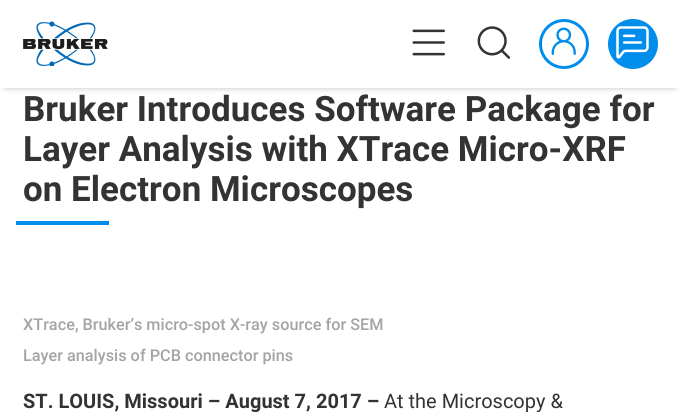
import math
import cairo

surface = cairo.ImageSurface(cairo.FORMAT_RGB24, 680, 412)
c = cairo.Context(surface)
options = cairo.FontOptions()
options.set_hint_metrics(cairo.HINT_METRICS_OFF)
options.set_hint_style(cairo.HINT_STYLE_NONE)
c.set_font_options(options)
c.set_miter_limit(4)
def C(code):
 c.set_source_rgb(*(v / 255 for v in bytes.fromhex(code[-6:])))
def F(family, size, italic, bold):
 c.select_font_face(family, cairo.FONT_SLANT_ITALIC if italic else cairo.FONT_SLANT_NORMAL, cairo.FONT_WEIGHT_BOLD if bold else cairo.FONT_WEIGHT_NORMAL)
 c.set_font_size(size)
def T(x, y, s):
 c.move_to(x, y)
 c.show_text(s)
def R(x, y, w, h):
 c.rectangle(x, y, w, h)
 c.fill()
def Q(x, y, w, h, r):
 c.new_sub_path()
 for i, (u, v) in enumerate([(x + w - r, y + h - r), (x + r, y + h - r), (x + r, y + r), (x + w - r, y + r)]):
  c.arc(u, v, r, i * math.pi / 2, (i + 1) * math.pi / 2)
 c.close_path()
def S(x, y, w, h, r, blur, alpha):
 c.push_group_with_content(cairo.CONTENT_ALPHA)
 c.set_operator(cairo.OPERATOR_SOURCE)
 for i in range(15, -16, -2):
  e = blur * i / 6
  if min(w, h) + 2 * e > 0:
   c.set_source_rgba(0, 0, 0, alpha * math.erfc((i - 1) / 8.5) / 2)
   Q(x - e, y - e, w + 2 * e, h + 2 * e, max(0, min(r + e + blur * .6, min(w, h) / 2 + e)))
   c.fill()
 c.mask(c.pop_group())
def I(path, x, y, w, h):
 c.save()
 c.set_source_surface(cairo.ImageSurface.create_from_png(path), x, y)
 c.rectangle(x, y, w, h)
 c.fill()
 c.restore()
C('ffffff')
c.paint()
C('000000')
S(5,10,670,78,0,3,.25)
C('ffffff')
R(0,5,680,83)
I('1.png',23,21,85,45)
I('2.png',412,29,33,27)
I('3.png',477,26,34,33)
c.arc(564,44,23.5,0,2 * math.pi)
C('008deb')
c.set_line_width(3)
c.stroke()
gradient = cairo.LinearGradient(575,100,463,-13)
gradient.add_color_stop_rgba(0,0,0.302,0.502,1)
gradient.add_color_stop_rgba(1,0,0.471,0.784,1)
c.set_source(gradient)
c.new_path()
c.move_to(541.5,39)
c.line_to(541.5,48)
c.curve_to(541,45,541,42,541.5,39)
c.close_path()
c.fill()
I('4.png',551,27,25,28)
C('008deb')
c.arc(633,44,25,0,2 * math.pi)
c.fill()
I('5.png',616,26,33,33)
F('Roboto',35,0,1)
C('333333')
T(23,121,'Bruker Introduces Software Package for')
T(23,161,'Layer Analysis with XTrace Micro-XRF')
T(23,201,'on Electron Microscopes')
C('008deb')
R(16,221,93,4)
F('Roboto Medium',16.25,0,0)
C('a4a4a4')
T(23,330,'XTrace, Bruker’s micro-spot X-ray source for SEM')
T(23,361,'Layer analysis of PCB connector pins')
F('Roboto',20,0,1)
C('333333')
T(23,408,'ST. LOUIS, Missouri – August 7, 2017 –')
F('Roboto',20,0,0)
T(384,408,'At the Microscopy &')
surface.write_to_png('o.png')
